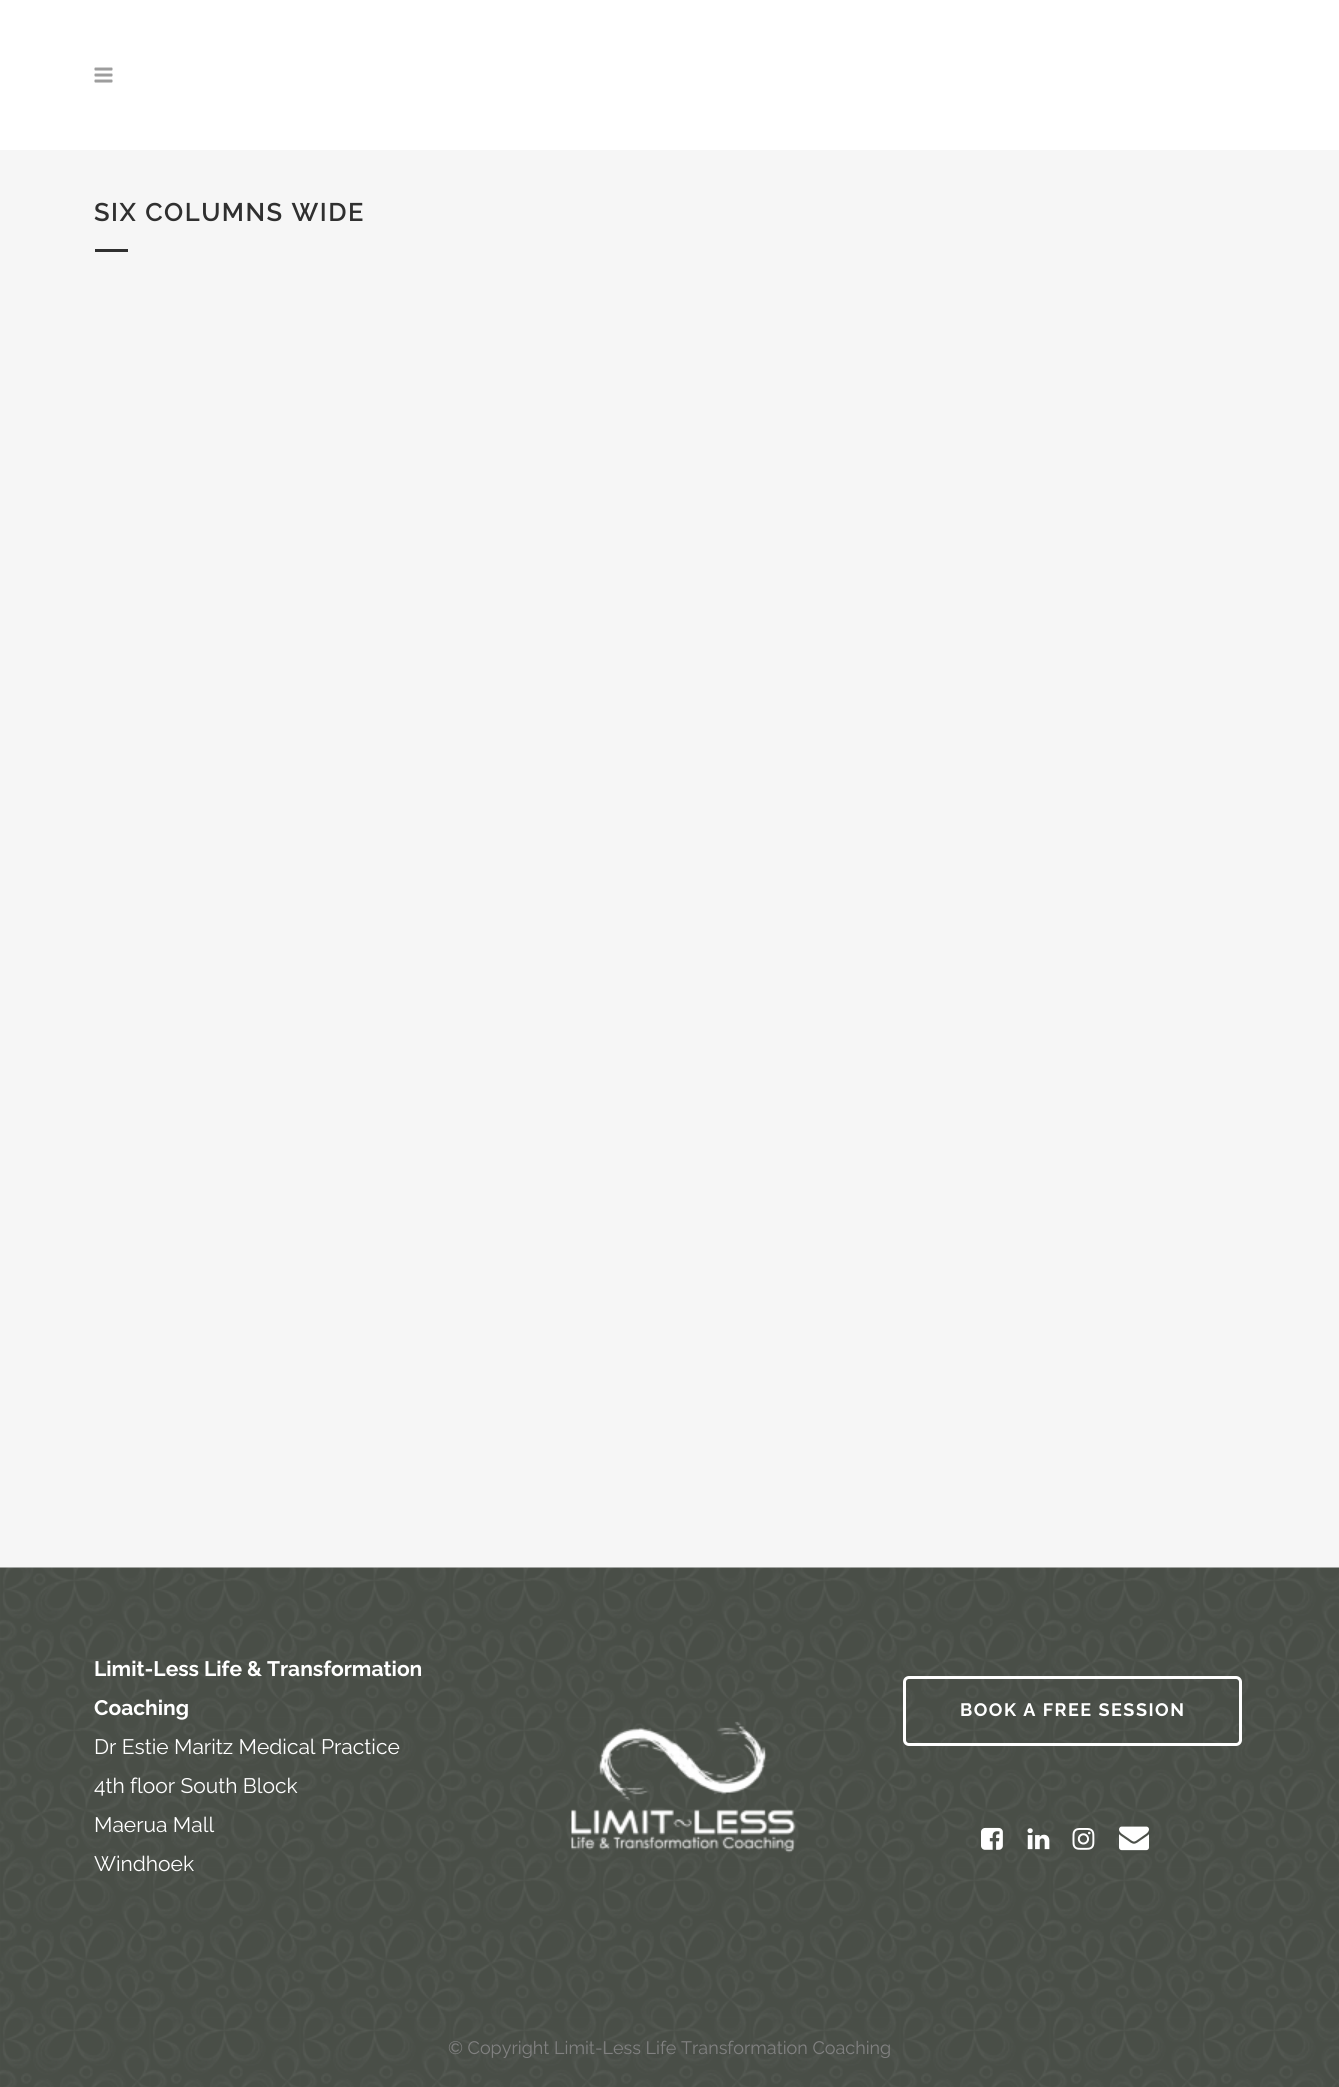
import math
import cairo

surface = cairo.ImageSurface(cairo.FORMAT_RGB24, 1339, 2087)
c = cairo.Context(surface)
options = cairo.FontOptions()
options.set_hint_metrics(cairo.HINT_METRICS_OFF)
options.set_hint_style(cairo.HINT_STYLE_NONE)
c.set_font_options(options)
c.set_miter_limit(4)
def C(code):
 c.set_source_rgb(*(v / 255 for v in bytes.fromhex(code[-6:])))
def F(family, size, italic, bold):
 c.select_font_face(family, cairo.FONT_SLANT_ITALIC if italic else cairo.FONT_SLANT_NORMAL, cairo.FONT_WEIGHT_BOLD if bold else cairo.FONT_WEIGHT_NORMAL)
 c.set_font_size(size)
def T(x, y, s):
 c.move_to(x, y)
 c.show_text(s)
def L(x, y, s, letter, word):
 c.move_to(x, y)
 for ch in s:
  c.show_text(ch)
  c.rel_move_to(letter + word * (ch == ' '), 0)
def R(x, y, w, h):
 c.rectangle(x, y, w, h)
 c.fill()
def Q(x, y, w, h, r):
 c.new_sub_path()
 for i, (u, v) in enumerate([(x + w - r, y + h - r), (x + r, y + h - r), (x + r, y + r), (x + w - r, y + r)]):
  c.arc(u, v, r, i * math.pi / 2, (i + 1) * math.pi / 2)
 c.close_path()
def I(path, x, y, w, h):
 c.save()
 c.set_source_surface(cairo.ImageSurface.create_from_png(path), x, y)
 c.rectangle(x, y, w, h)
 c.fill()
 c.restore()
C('f6f6f6')
c.paint()
C('ffffff')
R(0,0,1339,150)
I('1.png',94,67,19,16)
F('Raleway SemiBold',25.5,0,0)
C('303030')
L(94,221,'SIX COLUMNS WIDE',1.5,0)
R(95,249,33,3)
I('2.png',0,1567,1339,520)
F('Raleway',21,0,1)
C('ffffff')
T(94,1676,'Limit-Less Life & Transformation')
T(94,1715,'Coaching')
F('Raleway',21,0,0)
T(94,1754,'Dr Estie Maritz Medical Practice')
T(94,1793,'4th floor South Block')
T(94,1832,'Maerua Mall')
T(94,1871,'Windhoek')
Q(904.5,1677.5,336,67,4.5)
c.set_line_width(3)
c.stroke()
F('Raleway',18,0,1)
L(960,1716,'BOOK A FREE SESSION',1.5,0)
I('3.png',981,1827,22,23)
I('4.png',1027,1828,23,22)
I('5.png',1072,1828,23,22)
I('6.png',1119,1826,30,25)
I('7.png',571,1721,225,132)
F('Raleway',18,0,0)
C('818181')
T(448,2054,'© Copyright Limit-Less Life Transformation Coaching')
surface.write_to_png('o.png')
